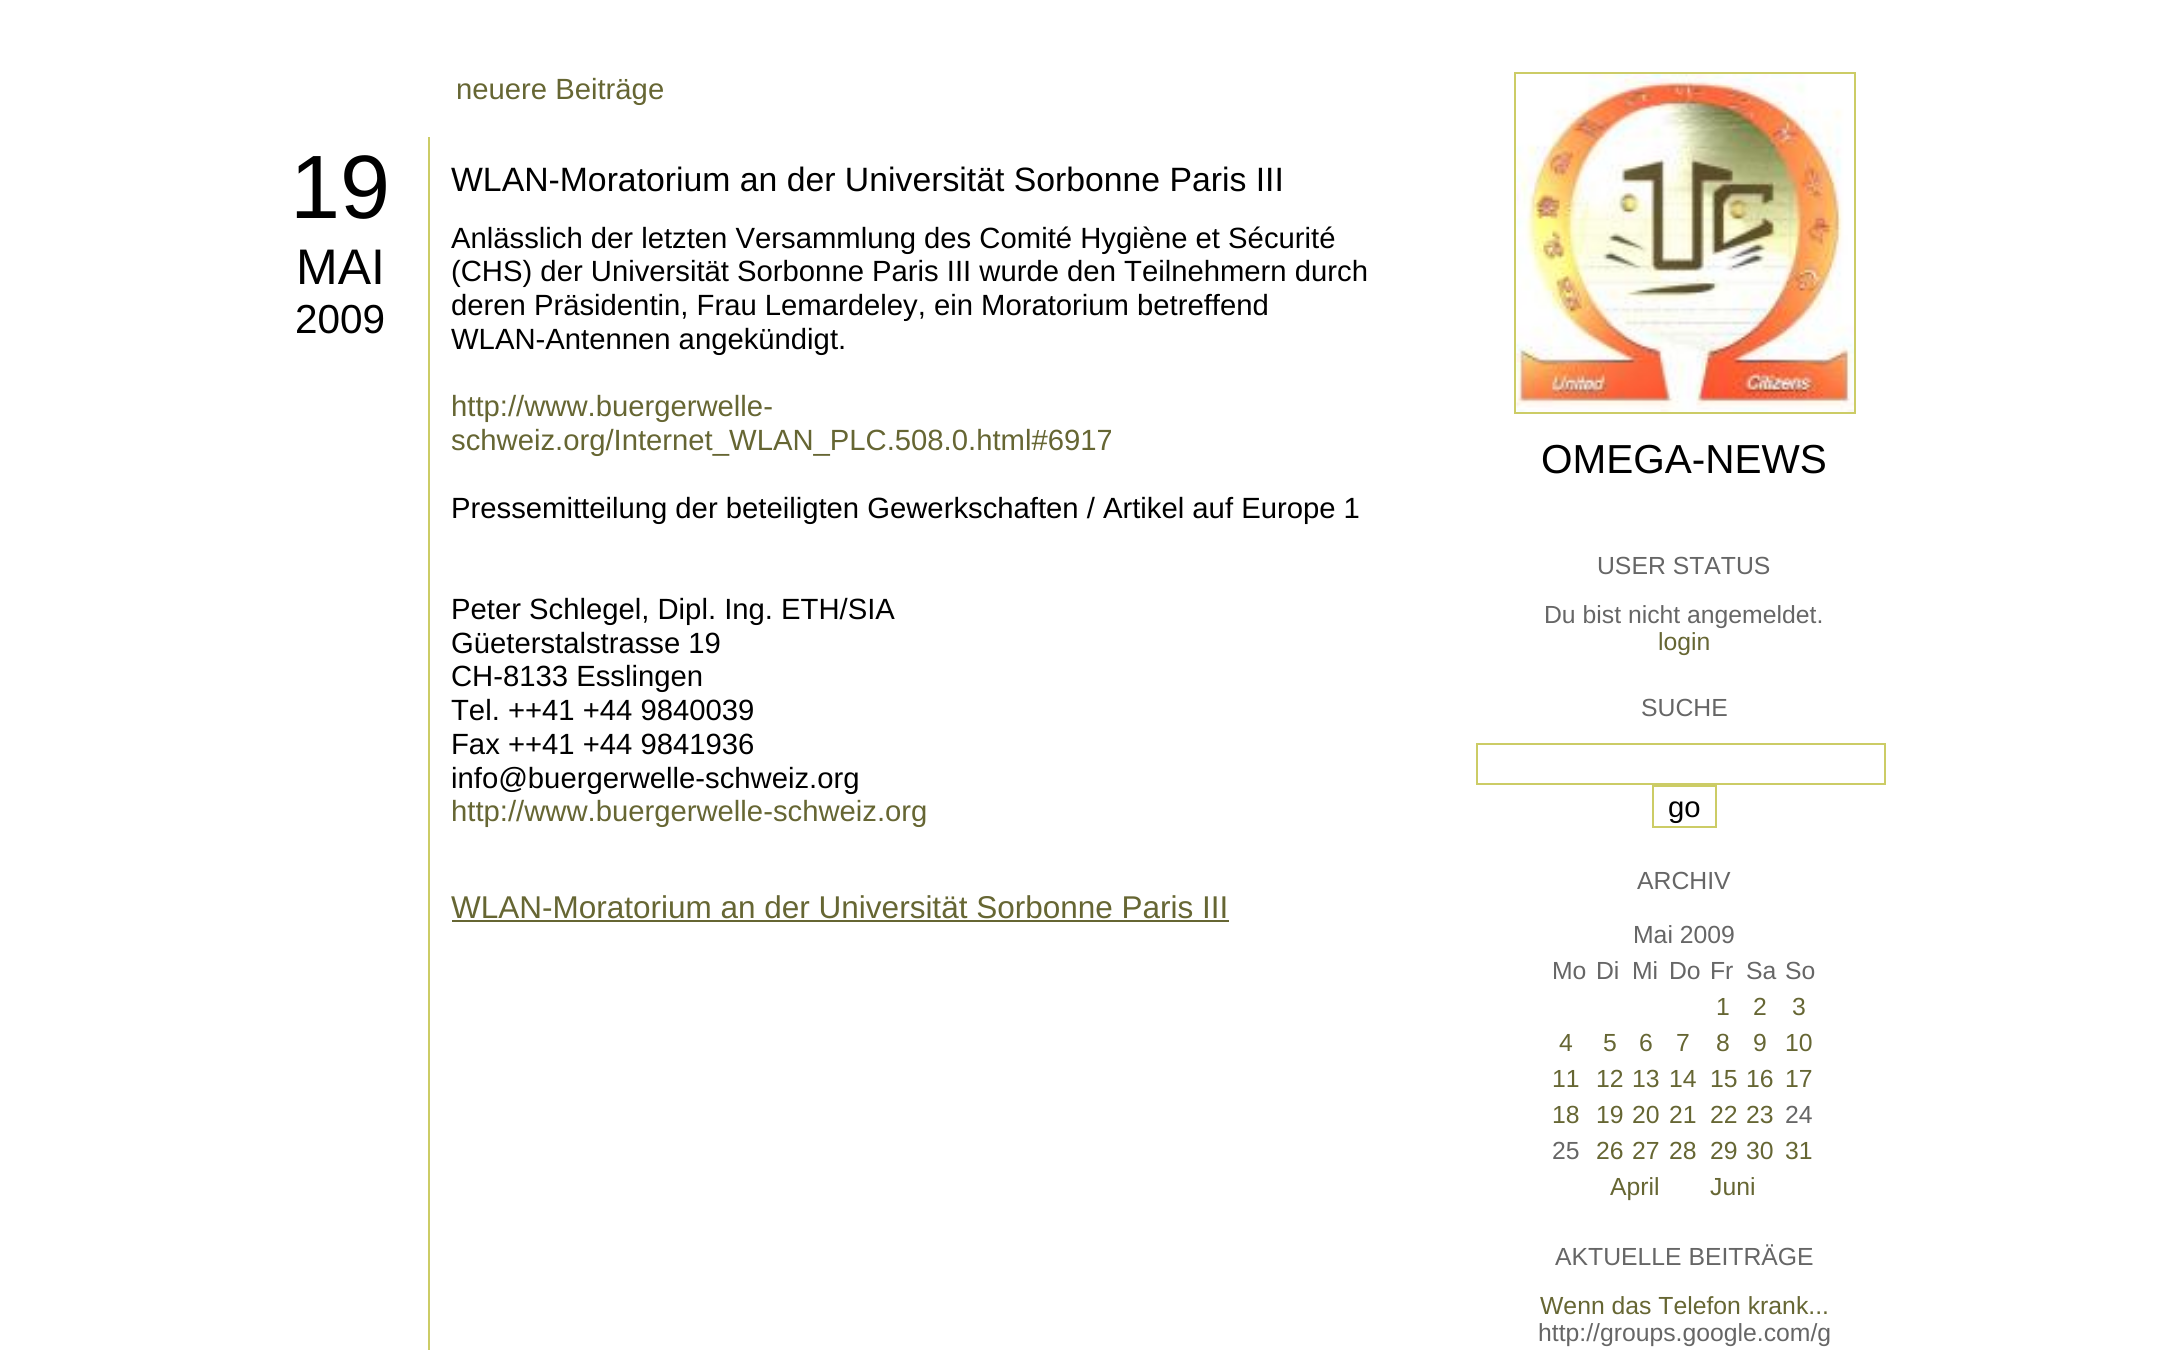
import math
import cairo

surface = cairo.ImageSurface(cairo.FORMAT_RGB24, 2174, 1350)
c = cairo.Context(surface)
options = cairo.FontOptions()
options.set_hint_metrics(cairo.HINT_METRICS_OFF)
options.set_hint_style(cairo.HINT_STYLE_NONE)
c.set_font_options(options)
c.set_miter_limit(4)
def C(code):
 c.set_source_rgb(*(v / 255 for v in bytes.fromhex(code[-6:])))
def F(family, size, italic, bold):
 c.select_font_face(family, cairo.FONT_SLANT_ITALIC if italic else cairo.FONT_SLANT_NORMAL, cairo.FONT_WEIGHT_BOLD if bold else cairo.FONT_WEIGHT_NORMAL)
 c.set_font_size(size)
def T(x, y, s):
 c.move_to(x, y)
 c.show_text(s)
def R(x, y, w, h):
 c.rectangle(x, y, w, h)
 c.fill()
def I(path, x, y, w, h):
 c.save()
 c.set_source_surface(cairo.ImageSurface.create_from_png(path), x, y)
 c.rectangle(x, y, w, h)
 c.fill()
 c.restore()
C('ffffff')
c.paint()
F('Liberation Sans',29.25,0,0)
C('666633')
T(456,99,'neuere Beiträge')
F('Liberation Sans',90,0,0)
C('000000')
T(290,218,'19')
F('Liberation Sans',50,0,0)
T(296,284,'MAI')
F('Liberation Sans',40.5,0,0)
T(295,333,'2009')
C('cccc66')
R(428,137,2,1213)
F('Liberation Sans',33.75,0,0)
C('000000')
T(451,191,'WLAN-Moratorium an der Universität Sorbonne Paris III')
F('Liberation Sans',29.25,0,0)
T(451,248,'Anlässlich der letzten Versammlung des Comité Hygiène et Sécurité')
T(451,281,'(CHS) der Universität Sorbonne Paris III wurde den Teilnehmern durch')
T(451,315,'deren Präsidentin, Frau Lemardeley, ein Moratorium betreffend')
T(451,349,'WLAN-Antennen angekündigt.')
C('666633')
T(451,416,'http://www.buergerwelle-')
T(451,450,'schweiz.org/Internet_WLAN_PLC.508.0.html#6917')
C('000000')
T(451,518,'Pressemitteilung der beteiligten Gewerkschaften / Artikel auf Europe 1')
T(451,619,'Peter Schlegel, Dipl. Ing. ETH/SIA')
T(451,653,'Güeterstalstrasse 19')
T(451,686,'CH-8133 Esslingen')
T(451,720,'Tel. ++41 +44 9840039')
T(451,754,'Fax ++41 +44 9841936')
T(451,788,'info@buergerwelle-schweiz.org')
C('666633')
T(451,821,'http://www.buergerwelle-schweiz.org')
F('Liberation Sans',31.5,0,0)
T(451,918,'WLAN-Moratorium an der Universität Sorbonne Paris III')
R(452,920,777,2)
c.rectangle(1515,73,340,340)
C('cccc66')
c.stroke()
I('1.png',1516,74,338,338)
F('Liberation Sans',40.5,0,0)
C('000000')
T(1541,473,'OMEGA-NEWS')
F('Liberation Sans',24.75,0,0)
C('666666')
T(1597,574,'USER STATUS')
T(1544,623,'Du bist nicht angemeldet.')
C('666633')
T(1658,650,'login')
C('666666')
T(1641,716,'SUCHE')
c.rectangle(1477,744,408,40)
C('cccc66')
c.stroke()
c.rectangle(1653,786,63,41)
c.stroke()
F('Liberation Sans',29.25,0,0)
C('000000')
T(1668,817,'go')
F('Liberation Sans',24.75,0,0)
C('666666')
T(1637,889,'ARCHIV')
T(1633,943,'Mai 2009')
T(1552,979,'Mo')
T(1596,979,'Di')
T(1632,979,'Mi')
T(1669,979,'Do')
T(1710,979,'Fr')
T(1746,979,'Sa')
T(1785,979,'So')
C('666633')
T(1716,1015,'1')
T(1753,1015,'2')
T(1792,1015,'3')
T(1559,1051,'4')
T(1603,1051,'5')
T(1639,1051,'6')
T(1676,1051,'7')
T(1716,1051,'8')
T(1753,1051,'9')
T(1785,1051,'10')
T(1552,1087,'11')
T(1596,1087,'12')
T(1632,1087,'13')
T(1669,1087,'14')
T(1710,1087,'15')
T(1746,1087,'16')
T(1785,1087,'17')
T(1552,1123,'18')
T(1596,1123,'19')
T(1632,1123,'20')
T(1669,1123,'21')
T(1710,1123,'22')
T(1746,1123,'23')
C('666666')
T(1785,1123,'24')
T(1552,1159,'25')
C('666633')
T(1596,1159,'26')
T(1632,1159,'27')
T(1669,1159,'28')
T(1710,1159,'29')
T(1746,1159,'30')
T(1785,1159,'31')
T(1610,1195,'April')
T(1710,1195,'Juni')
C('666666')
T(1555,1265,'AKTUELLE BEITRÄGE')
C('666633')
T(1540,1314,'Wenn das Telefon krank...')
C('666666')
T(1538,1341,'http://groups.google.com/g')
surface.write_to_png('o.png')
